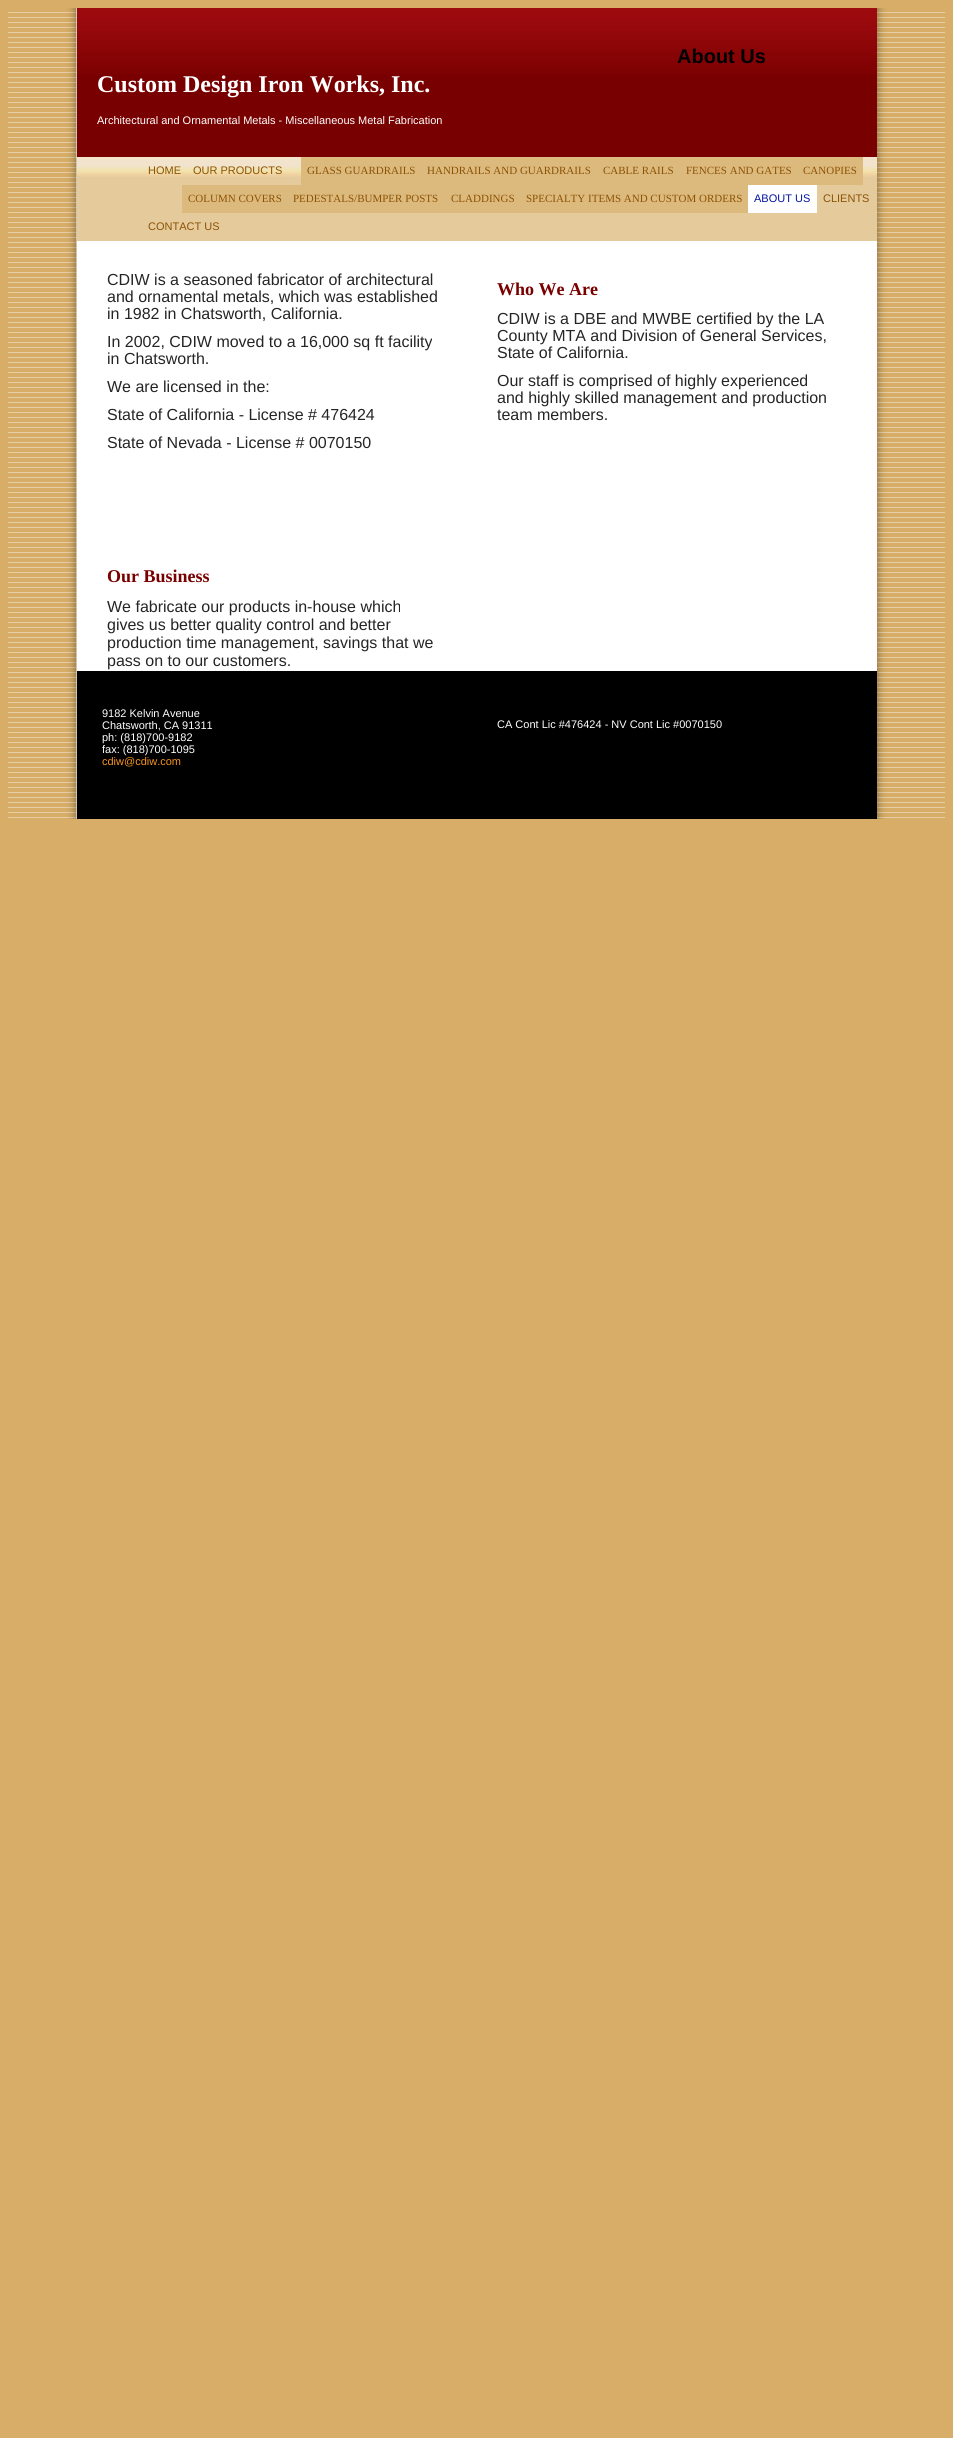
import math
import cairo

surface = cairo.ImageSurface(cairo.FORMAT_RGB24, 953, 2438)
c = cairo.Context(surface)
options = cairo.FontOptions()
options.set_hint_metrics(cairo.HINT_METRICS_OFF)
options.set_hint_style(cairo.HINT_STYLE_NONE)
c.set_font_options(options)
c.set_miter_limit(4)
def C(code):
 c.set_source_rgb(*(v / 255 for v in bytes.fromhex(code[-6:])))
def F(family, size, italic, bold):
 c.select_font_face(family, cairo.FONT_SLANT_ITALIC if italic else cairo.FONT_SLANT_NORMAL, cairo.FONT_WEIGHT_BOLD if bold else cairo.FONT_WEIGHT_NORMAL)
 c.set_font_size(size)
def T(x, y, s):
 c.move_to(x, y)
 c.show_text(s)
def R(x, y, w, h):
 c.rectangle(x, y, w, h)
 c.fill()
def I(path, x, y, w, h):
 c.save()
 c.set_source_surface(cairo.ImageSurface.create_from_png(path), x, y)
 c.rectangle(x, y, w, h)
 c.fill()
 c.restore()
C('d7ad67')
c.paint()
I('1.png',8,8,937,811)
C('ffffff')
R(876,241,1,430)
I('3.png',77,8,800,66)
F('Liberation Sans',20,0,1)
C('000000')
T(677,63,'About Us')
F('Liberation Sans',16,0,0)
C('252525')
T(107,285,'CDIW is a seasoned fabricator of architectural')
T(107,302,'and ornamental metals, which was established')
T(107,319,'in 1982 in Chatsworth, California.')
T(107,347,'In 2002, CDIW moved to a 16,000 sq ft facility')
T(107,364,'in Chatsworth.')
T(107,392,'We are licensed in the:')
T(107,420,'State of California - License # 476424')
T(107,448,'State of Nevada - License # 0070150')
F('Liberation Serif',18,0,1)
C('790000')
T(497,295,'Who We Are')
F('Liberation Sans',16,0,0)
C('252525')
T(497,324,'CDIW is a DBE and MWBE certified by the LA')
T(497,341,'County MTA and Division of General Services,')
T(497,358,'State of California.')
T(497,386,'Our staff is comprised of highly experienced')
T(497,403,'and highly skilled management and production')
T(497,420,'team members.')
F('Liberation Serif',18,0,1)
C('790000')
T(107,582,'Our Business')
F('Liberation Sans',16,0,0)
C('252525')
T(107,612,'We fabricate our products in-house which')
T(107,630,'gives us better quality control and better')
T(107,648,'production time management, savings that we')
T(107,666,'pass on to our customers.')
C('e5ca9c')
R(77,177,800,64)
I('2.png',77,157,800,20)
F('Liberation Sans',11,0,0)
C('8d5203')
T(148,174,'HOME')
C('dcba7e')
R(301,157,562,28)
F('Liberation Serif',11,0,0)
C('8d5203')
T(307,174,'GLASS GUARDRAILS')
T(427,174,'HANDRAILS AND GUARDRAILS')
T(603,174,'CABLE RAILS')
T(686,174,'FENCES AND GATES')
T(803,174,'CANOPIES')
C('dcba7e')
R(182,185,566,28)
C('8d5203')
T(188,202,'COLUMN COVERS')
T(293,202,'PEDESTALS/BUMPER POSTS')
T(451,202,'CLADDINGS')
T(526,202,'SPECIALTY ITEMS AND CUSTOM ORDERS')
F('Liberation Sans',11,0,0)
T(193,174,'OUR PRODUCTS')
C('ffffff')
R(748,185,69,28)
C('0312a4')
T(754,202,'ABOUT US')
C('8d5203')
T(823,202,'CLIENTS')
T(148,230,'CONTACT US')
C('790000')
R(77,74,800,83)
F('Liberation Serif',24,0,1)
C('ffffff')
T(97,92,'Custom Design Iron Works, Inc.')
F('Liberation Sans',11,0,0)
T(97,124,'Architectural and Ornamental Metals - Miscellaneous Metal Fabrication')
C('000000')
R(77,671,800,148)
C('ffffff')
T(102,717,'9182 Kelvin Avenue')
T(102,729,'Chatsworth, CA 91311')
T(102,741,'ph: (818)700-9182')
T(102,753,'fax: (818)700-1095')
C('f7941d')
T(102,765,'cdiw@cdiw.com')
C('ffffff')
T(497,728,'CA Cont Lic #476424 - NV Cont Lic #0070150')
surface.write_to_png('o.png')
